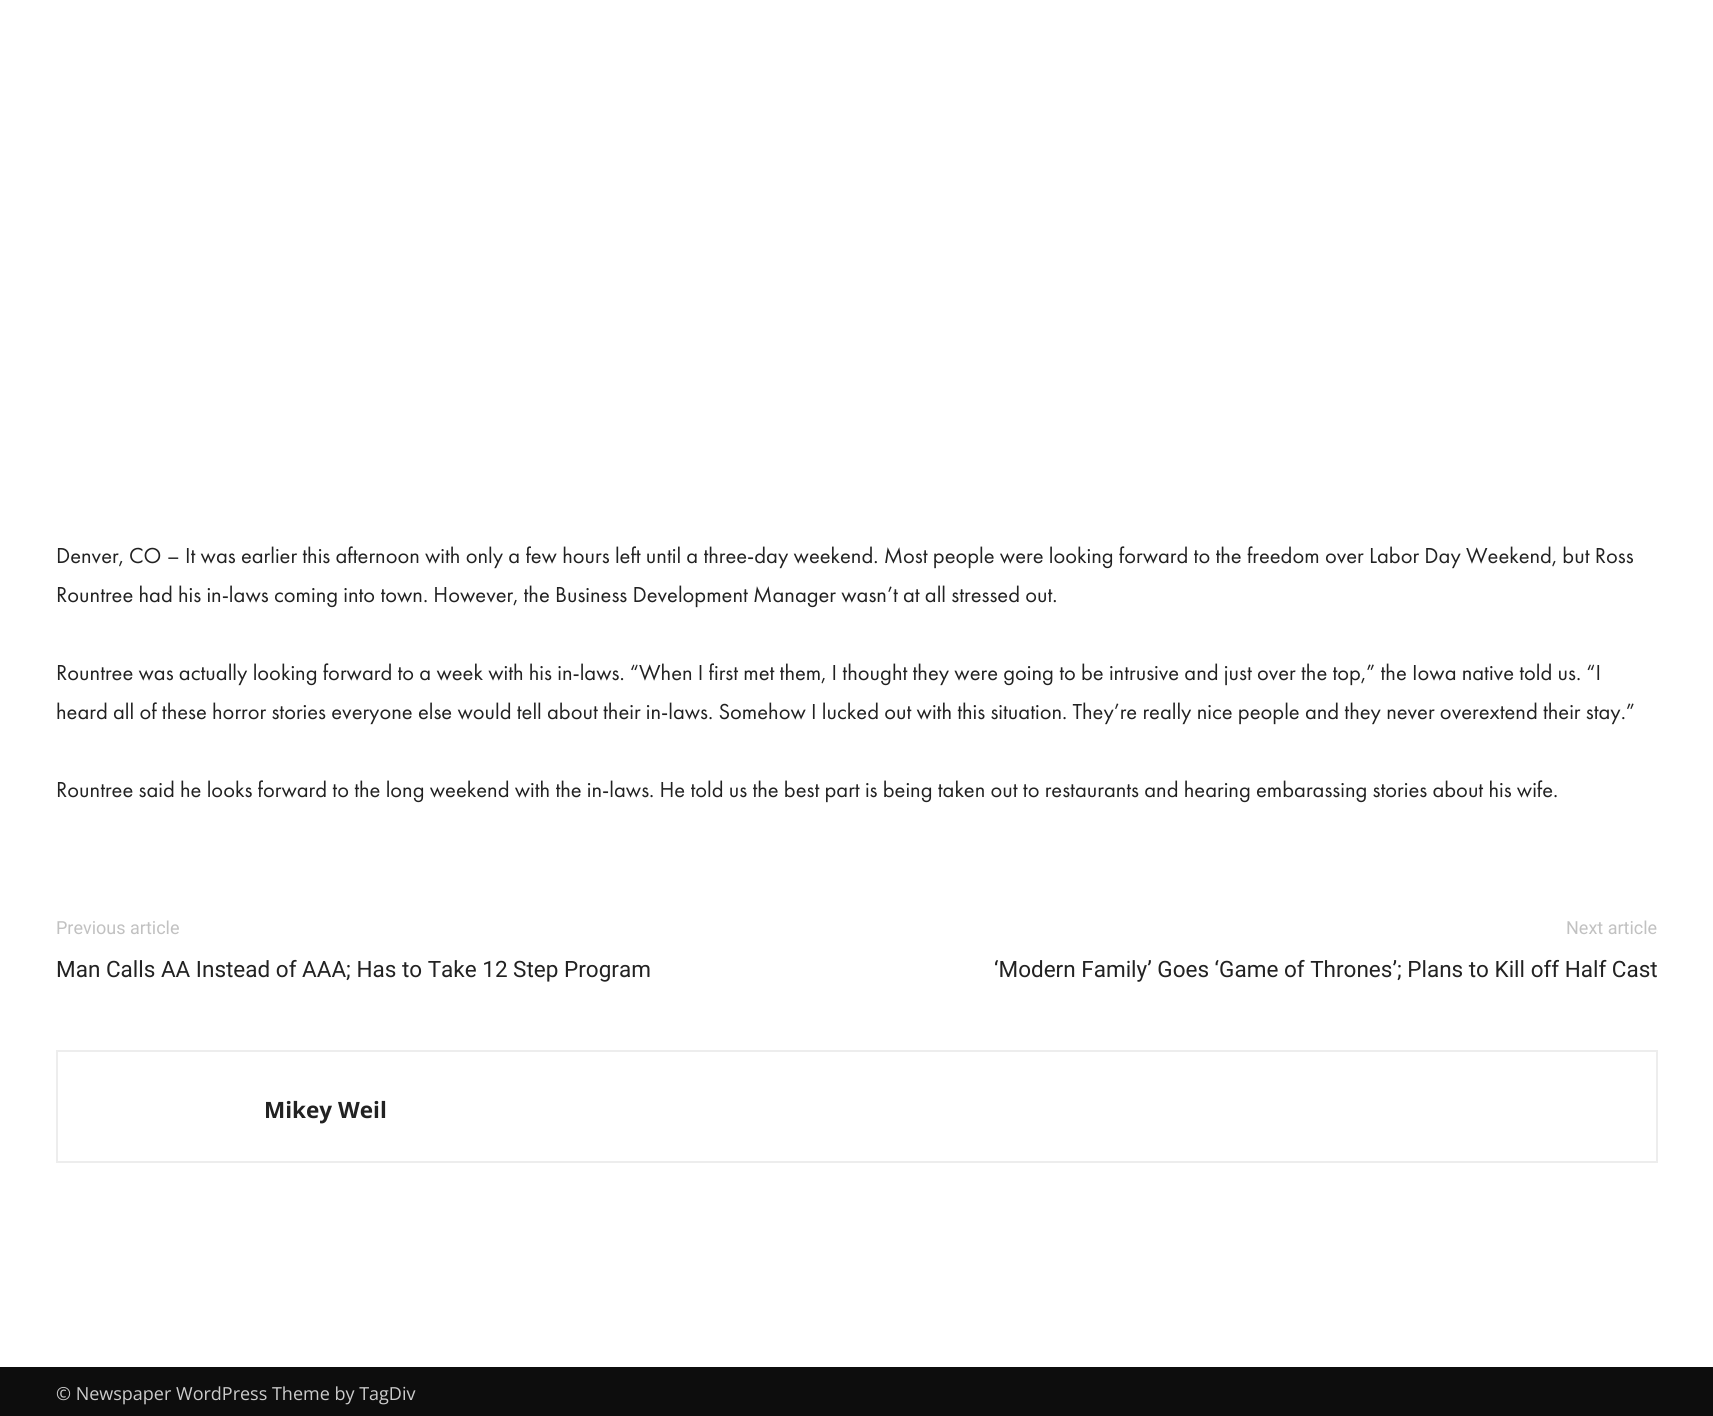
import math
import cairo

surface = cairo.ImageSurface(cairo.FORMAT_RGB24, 1713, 1416)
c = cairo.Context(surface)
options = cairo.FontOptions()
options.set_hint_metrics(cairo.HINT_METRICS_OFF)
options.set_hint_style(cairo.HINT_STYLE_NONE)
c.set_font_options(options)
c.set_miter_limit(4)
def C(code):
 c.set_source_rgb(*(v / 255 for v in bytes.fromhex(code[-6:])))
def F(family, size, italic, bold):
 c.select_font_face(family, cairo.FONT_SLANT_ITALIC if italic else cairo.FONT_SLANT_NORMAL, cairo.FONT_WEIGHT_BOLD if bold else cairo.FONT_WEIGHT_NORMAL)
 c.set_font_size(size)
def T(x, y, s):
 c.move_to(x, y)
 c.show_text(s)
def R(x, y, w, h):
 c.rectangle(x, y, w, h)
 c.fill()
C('ffffff')
c.paint()
F('Futura PT',22.5,0,0)
C('222222')
T(56,563,'Denver, CO – It was earlier this afternoon with only a few hours left until a three-day weekend. Most people were looking forward to the freedom over Labor Day Weekend, but Ross')
T(56,602,'Rountree had his in-laws coming into town. However, the Business Development Manager wasn’t at all stressed out.')
T(56,680,'Rountree was actually looking forward to a week with his in-laws. “When I first met them, I thought they were going to be intrusive and just over the top,” the Iowa native told us. “I')
T(56,719,'heard all of these horror stories everyone else would tell about their in-laws. Somehow I lucked out with this situation. They’re really nice people and they never overextend their stay.”')
T(56,797,'Rountree said he looks forward to the long weekend with the in-laws. He told us the best part is being taken out to restaurants and hearing embarassing stories about his wife.')
F('Roboto',18,0,0)
C('c1c1c1')
T(56,934,'Previous article')
F('Roboto',22.5,0,0)
C('222222')
T(56,977,'Man Calls AA Instead of AAA; Has to Take 12 Step Program')
F('Roboto',18,0,0)
C('c1c1c1')
T(1566,934,'Next article')
F('Roboto',22.5,0,0)
C('222222')
T(994,977,'‘Modern Family’ Goes ‘Game of Thrones’; Plans to Kill off Half Cast')
c.rectangle(57,1051,1600,111)
C('ededed')
c.stroke()
F('Open Sans',22.5,0,1)
C('222222')
T(264,1118,'Mikey Weil')
C('0d0d0d')
R(0,1367,1713,49)
F('Open Sans',18,0,0)
C('cccccc')
T(56,1400,'© Newspaper WordPress Theme by TagDiv')
surface.write_to_png('o.png')
